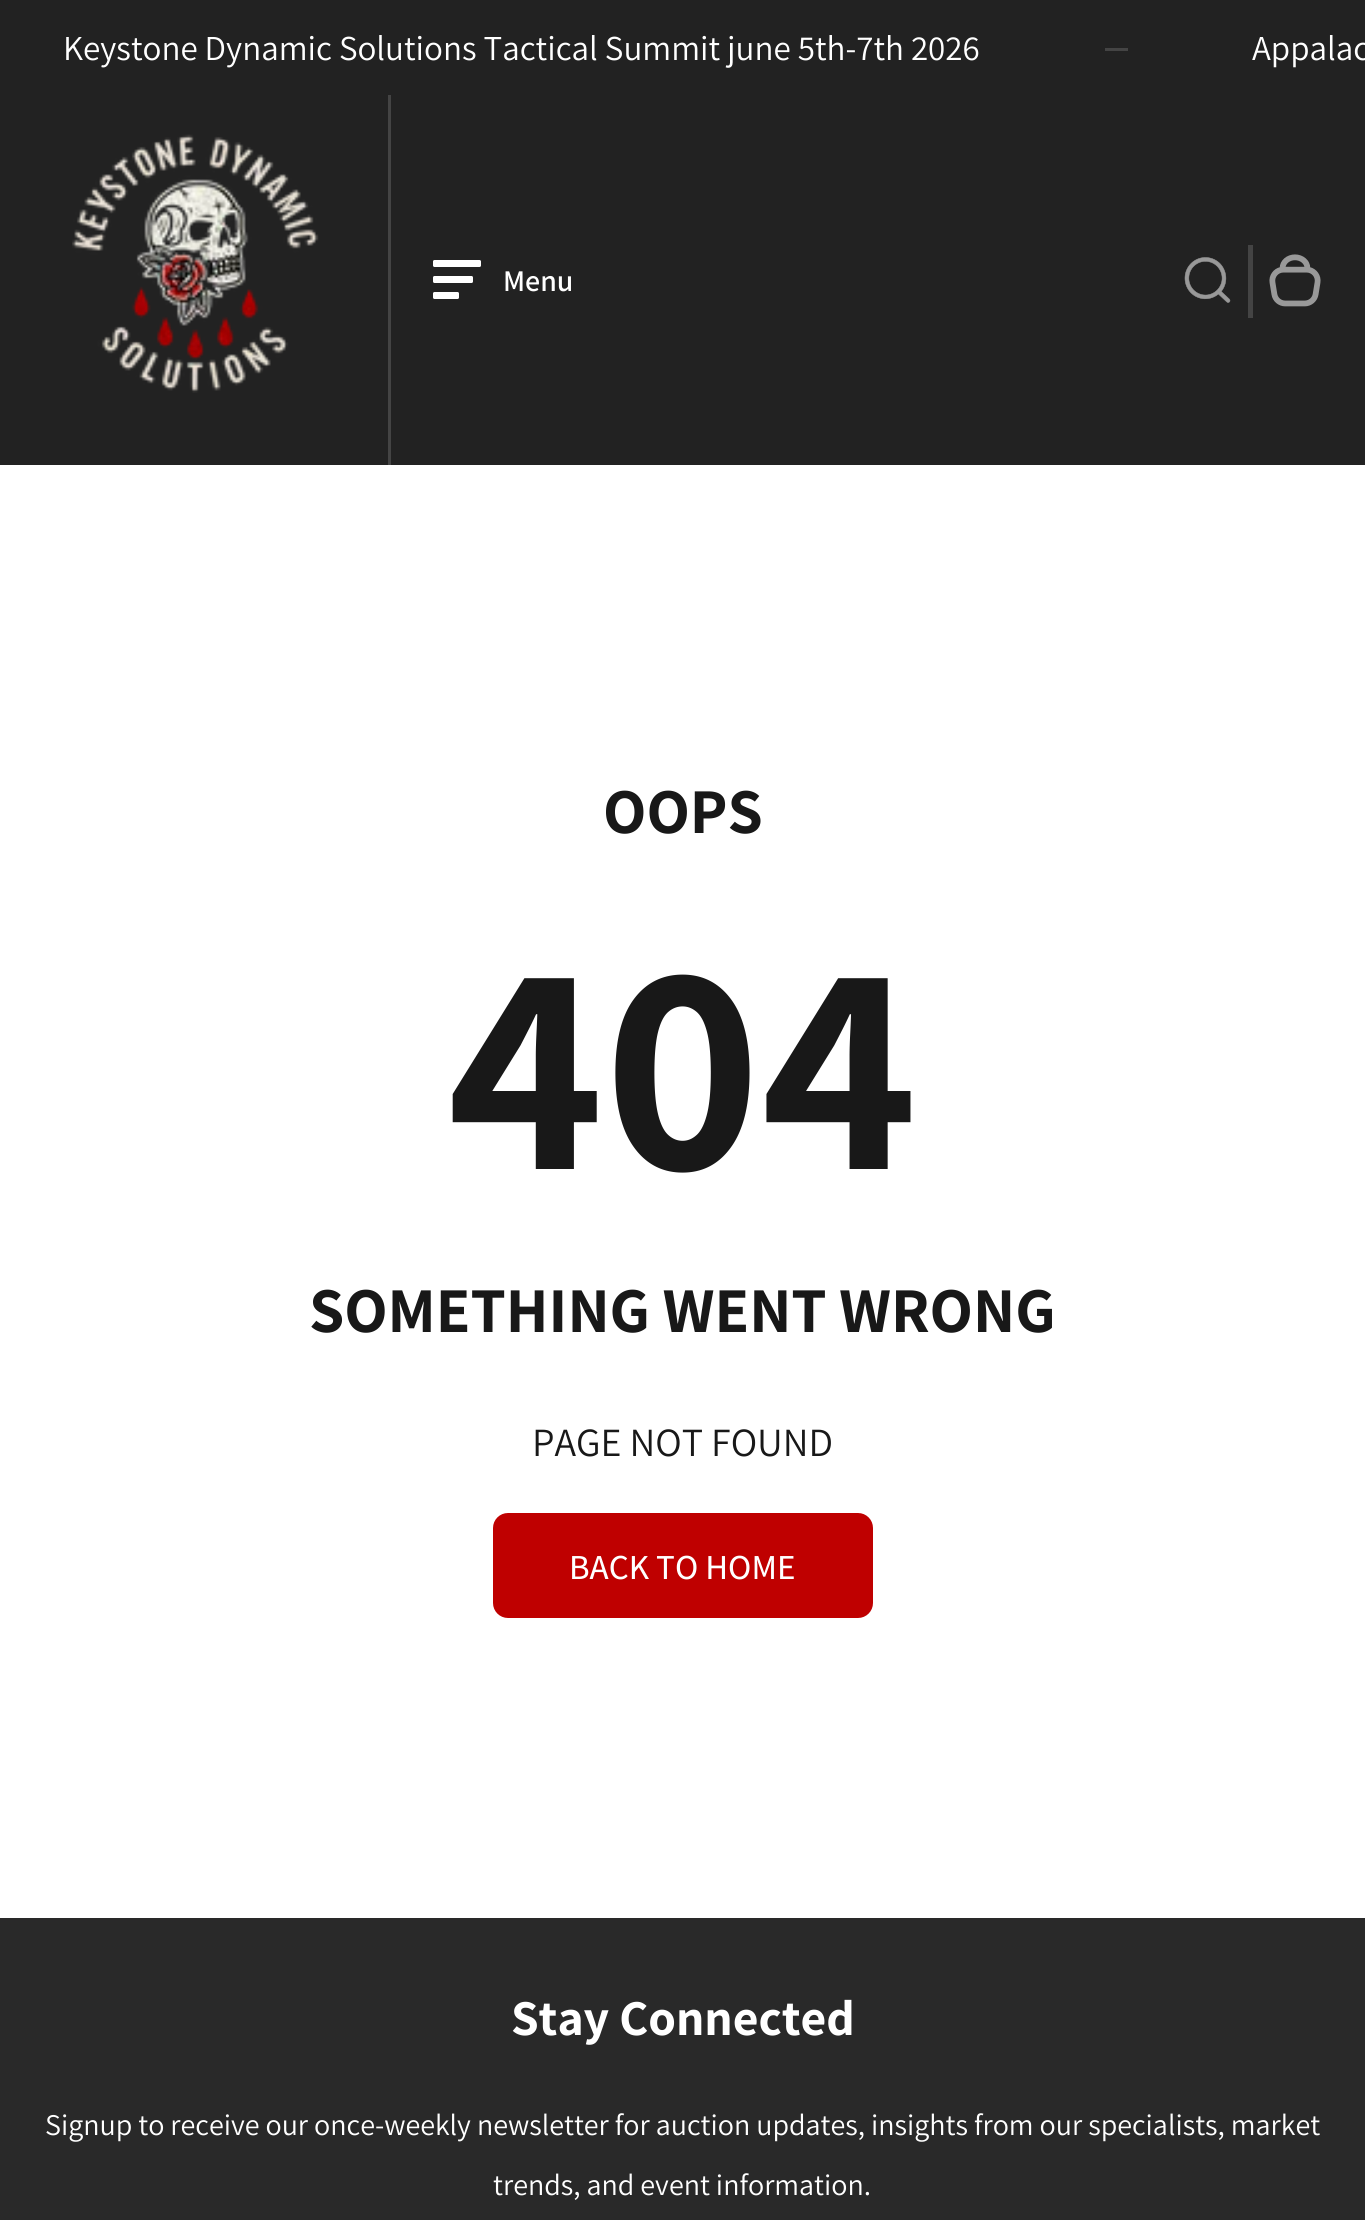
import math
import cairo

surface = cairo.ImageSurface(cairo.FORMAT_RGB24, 1365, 2220)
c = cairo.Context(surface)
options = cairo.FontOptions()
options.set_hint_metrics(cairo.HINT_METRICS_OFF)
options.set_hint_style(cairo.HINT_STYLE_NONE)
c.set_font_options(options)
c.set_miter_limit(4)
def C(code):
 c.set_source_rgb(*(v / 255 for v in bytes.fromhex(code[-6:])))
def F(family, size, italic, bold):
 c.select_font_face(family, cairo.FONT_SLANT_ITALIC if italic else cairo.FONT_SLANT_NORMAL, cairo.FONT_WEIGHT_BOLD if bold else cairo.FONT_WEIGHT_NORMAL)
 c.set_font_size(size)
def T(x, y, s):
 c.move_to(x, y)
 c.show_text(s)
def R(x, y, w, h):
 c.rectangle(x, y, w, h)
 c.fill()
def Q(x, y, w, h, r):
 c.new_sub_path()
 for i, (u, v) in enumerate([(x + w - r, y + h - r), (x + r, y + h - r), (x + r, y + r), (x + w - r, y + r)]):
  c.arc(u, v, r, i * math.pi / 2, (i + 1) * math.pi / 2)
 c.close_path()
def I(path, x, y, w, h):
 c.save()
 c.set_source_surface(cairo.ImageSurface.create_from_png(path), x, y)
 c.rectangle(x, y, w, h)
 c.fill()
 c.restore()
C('ffffff')
c.paint()
C('222222')
R(0,0,1365,465)
F('Assistant',35,0,0)
C('ffffff')
T(63,60,'Keystone Dynamic Solutions Tactical Summit june 5th-7th 2026')
C('444444')
R(1105,48,23,3)
C('ffffff')
T(1252,60,'Appalac')
I('1.png',72,134,247,259)
C('444444')
R(388,95,3,370)
C('ffffff')
Q(433,260,48,7,1.5)
c.fill()
Q(433,276,40,7,1.5)
c.fill()
Q(433,292,26,7,1.5)
c.fill()
F('Assistant SemiBold',30,0,0)
T(503,291,'Menu')
I('2.png',1184,257,47,46)
C('444444')
R(1248,245,5,73)
I('3.png',1269,254,52,53)
F('Assistant',63.75,0,1)
C('181818')
T(603,833,'OOPS')
F('Assistant',300,0,1)
T(447,1169,'404')
F('Assistant',63.75,0,1)
T(309,1332,'SOMETHING WENT WRONG')
F('Assistant',40,0,0)
T(532,1456,'PAGE NOT FOUND')
C('bf0000')
Q(494.5,1514.5,377,102,13.5)
c.fill_preserve()
c.set_line_width(3)
c.stroke()
F('Assistant Medium',35,0,0)
C('ffffff')
T(569,1579,'BACK TO HOME')
C('292929')
R(0,1918,1365,302)
F('Assistant',50,0,1)
C('ffffff')
T(511,2035,'Stay Connected')
F('Assistant',30,0,0)
T(45,2135,'Signup to receive our once-weekly newsletter for auction updates, insights from our specialists, market')
T(493,2195,'trends, and event information.')
surface.write_to_png('o.png')
